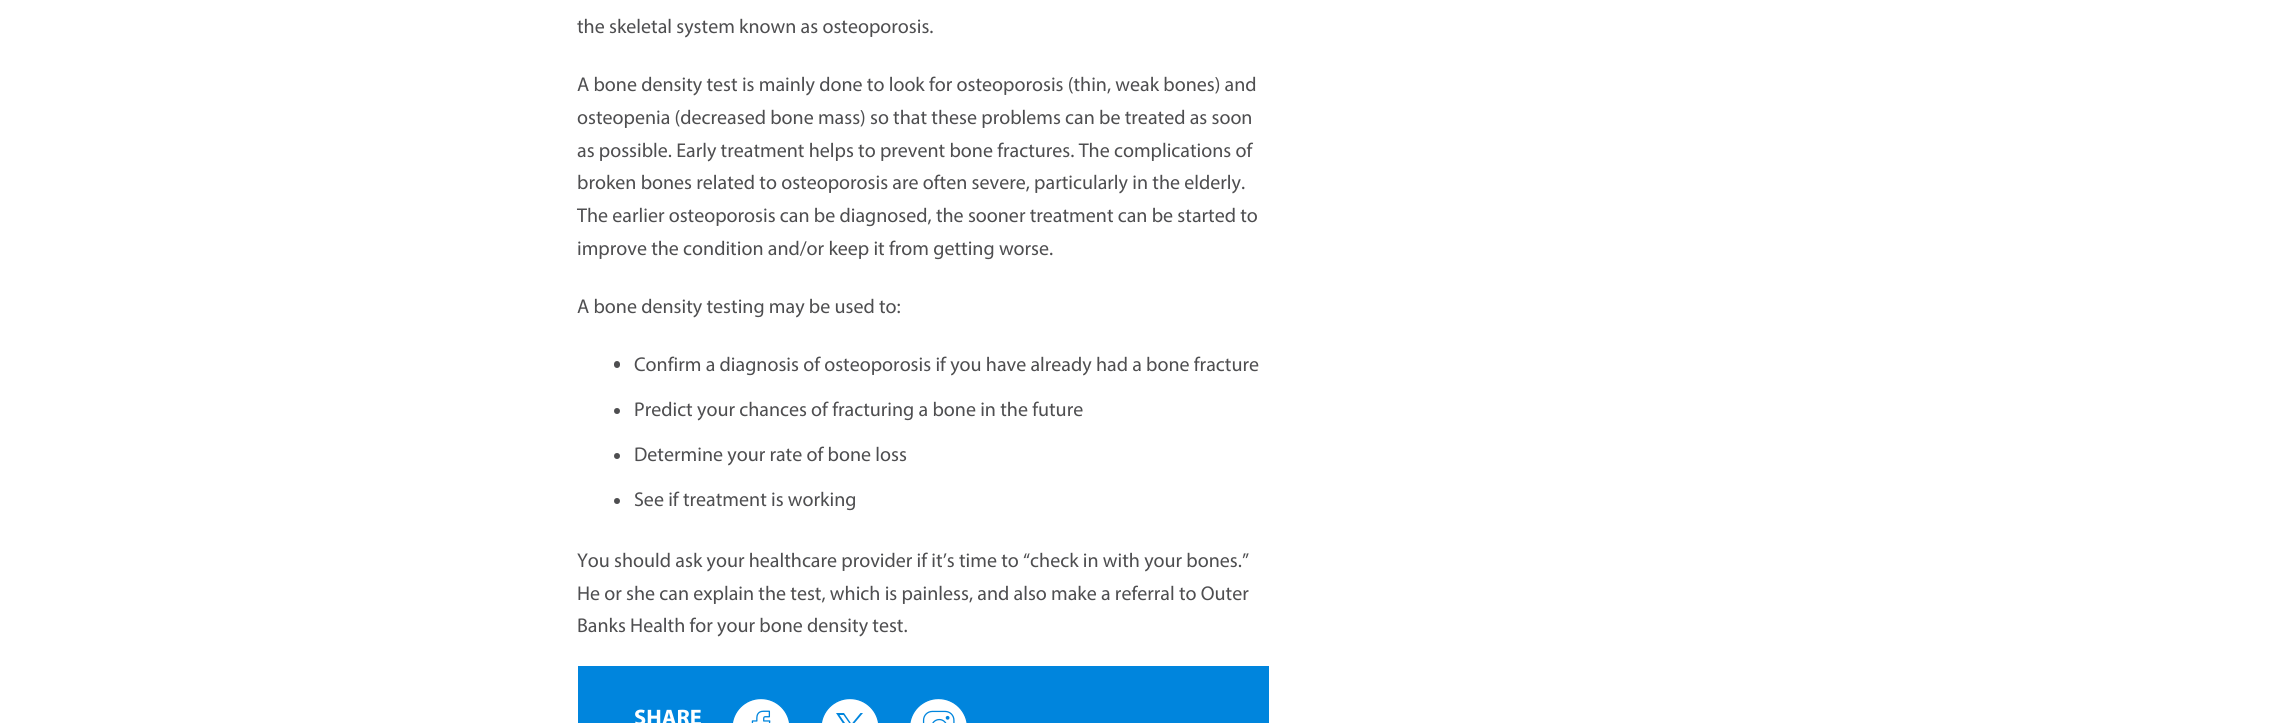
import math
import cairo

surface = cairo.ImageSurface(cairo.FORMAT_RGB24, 2291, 723)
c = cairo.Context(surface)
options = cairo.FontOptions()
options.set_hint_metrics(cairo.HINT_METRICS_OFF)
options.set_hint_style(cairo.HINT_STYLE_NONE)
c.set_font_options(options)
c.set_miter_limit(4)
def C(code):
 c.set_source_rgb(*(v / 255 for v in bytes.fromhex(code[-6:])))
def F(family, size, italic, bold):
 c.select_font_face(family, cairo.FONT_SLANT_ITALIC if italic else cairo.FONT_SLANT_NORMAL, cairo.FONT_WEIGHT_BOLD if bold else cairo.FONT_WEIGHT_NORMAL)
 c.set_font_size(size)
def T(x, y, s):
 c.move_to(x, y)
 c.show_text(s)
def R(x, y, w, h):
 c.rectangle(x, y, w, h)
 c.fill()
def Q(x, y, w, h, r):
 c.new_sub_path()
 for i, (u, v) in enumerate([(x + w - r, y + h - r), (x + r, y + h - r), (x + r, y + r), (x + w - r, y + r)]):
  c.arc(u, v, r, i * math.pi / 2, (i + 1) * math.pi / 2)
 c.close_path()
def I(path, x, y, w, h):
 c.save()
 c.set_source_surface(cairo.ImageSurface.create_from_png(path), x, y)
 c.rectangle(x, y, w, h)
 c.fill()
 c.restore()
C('ffffff')
c.paint()
F('Myriad',20,0,0)
C('4e4e50')
T(577,33,'the skeletal system known as osteoporosis.')
T(577,91,'A bone density test is mainly done to look for osteoporosis (thin, weak bones) and')
T(577,124,'osteopenia (decreased bone mass) so that these problems can be treated as soon')
T(577,157,'as possible. Early treatment helps to prevent bone fractures. The complications of')
T(577,189,'broken bones related to osteoporosis are often severe, particularly in the elderly.')
T(577,222,'The earlier osteoporosis can be diagnosed, the sooner treatment can be started to')
T(577,255,'improve the condition and/or keep it from getting worse.')
T(577,313,'A bone density testing may be used to:')
Q(614,361,6,7,3)
c.fill()
T(634,371,'Confirm a diagnosis of osteoporosis if you have already had a bone fracture')
c.new_path()
c.arc(617,411,3,0,2 * math.pi)
c.fill()
T(634,416,'Predict your chances of fracturing a bone in the future')
c.new_path()
c.arc(617,456,3,0,2 * math.pi)
c.fill()
T(634,461,'Determine your rate of bone loss')
c.new_path()
c.arc(617,501,3,0,2 * math.pi)
c.fill()
T(634,506,'See if treatment is working')
T(577,567,'You should ask your healthcare provider if it’s time to “check in with your bones.”')
T(577,600,'He or she can explain the test, which is painless, and also make a referral to Outer')
T(577,632,'Banks Health for your bone density test.')
C('0085dd')
R(578,666,691,57)
F('Myriad',22.5,0,1)
C('ffffff')
T(634,725,'SHARE')
I('1.png',732,698,58,25)
c.arc(850,727.5,29,0,2 * math.pi)
c.fill()
c.save()
c.rectangle(820,698,60,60)
c.clip()
c.arc(850,727.5,29,0,2 * math.pi)
C('0085dd')
c.set_line_width(1.3)
c.stroke()
c.restore()
C('0085dd')
c.new_path()
c.move_to(852.5,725.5)
c.line_to(863,713)
c.line_to(860.5,713)
c.line_to(851.5,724)
c.line_to(844,713)
c.line_to(836,713)
c.line_to(847,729.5)
c.line_to(836,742)
c.line_to(838.5,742)
c.line_to(848,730.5)
c.line_to(855.5,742)
c.line_to(864,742)
c.close_path()
c.move_to(849.5,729.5)
c.line_to(839.5,715)
c.line_to(843.5,715)
c.line_to(861,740)
c.line_to(857,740)
c.close_path()
c.fill()
I('2.png',910,698,57,25)
surface.write_to_png('o.png')
